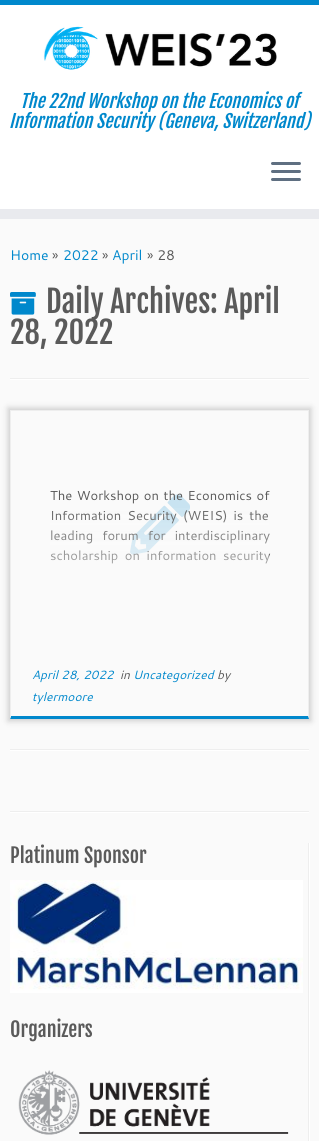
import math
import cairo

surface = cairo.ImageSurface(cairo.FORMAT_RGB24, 319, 1141)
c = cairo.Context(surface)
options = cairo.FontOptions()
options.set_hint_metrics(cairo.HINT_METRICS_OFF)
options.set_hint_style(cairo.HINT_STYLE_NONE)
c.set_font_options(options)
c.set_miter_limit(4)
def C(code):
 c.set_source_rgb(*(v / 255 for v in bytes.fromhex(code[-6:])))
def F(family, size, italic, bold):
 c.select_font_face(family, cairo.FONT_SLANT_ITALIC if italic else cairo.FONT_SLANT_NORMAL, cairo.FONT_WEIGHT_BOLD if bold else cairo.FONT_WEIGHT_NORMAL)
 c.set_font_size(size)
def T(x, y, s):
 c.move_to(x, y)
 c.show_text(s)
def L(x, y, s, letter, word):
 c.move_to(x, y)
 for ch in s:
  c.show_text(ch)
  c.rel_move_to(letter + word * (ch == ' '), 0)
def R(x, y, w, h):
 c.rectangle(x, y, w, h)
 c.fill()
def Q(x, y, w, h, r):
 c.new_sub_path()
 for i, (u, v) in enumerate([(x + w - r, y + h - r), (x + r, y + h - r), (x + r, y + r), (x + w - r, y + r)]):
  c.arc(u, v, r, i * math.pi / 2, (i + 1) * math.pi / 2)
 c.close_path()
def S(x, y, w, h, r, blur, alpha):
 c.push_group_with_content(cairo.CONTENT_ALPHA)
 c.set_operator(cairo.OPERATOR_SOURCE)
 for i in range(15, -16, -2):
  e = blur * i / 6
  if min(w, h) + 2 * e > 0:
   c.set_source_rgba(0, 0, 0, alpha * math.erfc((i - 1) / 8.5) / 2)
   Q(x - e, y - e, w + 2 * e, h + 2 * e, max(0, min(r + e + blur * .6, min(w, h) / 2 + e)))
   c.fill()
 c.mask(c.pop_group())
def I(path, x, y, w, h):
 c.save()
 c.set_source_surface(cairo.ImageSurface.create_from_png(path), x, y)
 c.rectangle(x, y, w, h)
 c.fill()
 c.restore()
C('fafafa')
c.paint()
C('ffffff')
R(0,5,319,204)
C('0088cc')
R(0,0,319,5)
C('e9eaee')
R(0,209,319,10)
I('1.png',43,26,234,44)
F('Fjalla One',18,1,0)
C('0088cc')
T(20,108,'The 22nd Workshop on the Economics of')
T(9,128,'Information Security (Geneva, Switzerland)')
C('5f6f81')
Q(271,162,30,3,1.5)
c.fill()
Q(271,170,30,3,1.5)
c.fill()
Q(271,178,30,3,1.5)
c.fill()
F('Cantarell',14,0,0)
C('0088cc')
T(10,260,'Home')
C('5a5a5a')
T(52,260,'»')
C('0088cc')
T(63,260,'2022')
C('5a5a5a')
T(102,260,'»')
C('0088cc')
T(112,260,'April')
C('5a5a5a')
T(147,260,'» 28')
I('2.png',10,292,26,23)
F('Fjalla One',30.5,0,0)
T(46,313,'Daily Archives: April')
T(10,344,'28, 2022')
C('eeeeee')
R(10,378,299,1)
C('ffffff')
R(10,379,299,1)
c.save()
c.set_fill_rule(cairo.FILL_RULE_EVEN_ODD)
c.new_path()
c.move_to(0,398)
c.line_to(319,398)
c.line_to(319,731)
c.line_to(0,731)
c.close_path()
c.move_to(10,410)
c.line_to(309,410)
c.line_to(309,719)
c.line_to(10,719)
c.close_path()
c.clip()
C('cccccc')
S(8,408,303,313,0,3,1)
c.restore()
C('eeeeee')
R(10,410,299,1)
c.new_path()
c.move_to(309,410)
c.line_to(309,719)
c.line_to(308,716)
c.line_to(308,411)
c.close_path()
c.fill()
C('0088cc')
c.new_path()
c.move_to(309,719)
c.line_to(10,719)
c.line_to(11,716)
c.line_to(308,716)
c.close_path()
c.fill()
C('eeeeee')
c.new_path()
c.move_to(10,719)
c.line_to(10,410)
c.line_to(11,411)
c.line_to(11,716)
c.close_path()
c.fill()
I('3.png',130,494,60,61)
F('Cantarell',13,0,0)
C('5a5a5a')
L(50,500,'The Workshop on the Economics of',0,1)
L(50,520,'Information Security (WEIS) is the',0,2.5)
L(50,540,'leading forum for interdisciplinary',0,5.5)
L(50,560,'scholarship on information security',0,3)
gradient = cairo.LinearGradient(160,501,160,636)
gradient.add_color_stop_rgba(0,0.98,0.98,0.98,0)
gradient.add_color_stop_rgba(1,0.98,0.98,0.98,1)
c.set_source(gradient)
R(50,508,219,56)
F('Cantarell',12,1,0)
C('0088cc')
T(32,679,'April 28, 2022')
C('5a5a5a')
T(120,679,'in')
C('0088cc')
T(133,679,'Uncategorized')
C('5a5a5a')
T(217,679,'by')
C('0088cc')
T(32,701,'tylermoore')
C('eeeeee')
R(10,749,299,1)
C('ffffff')
R(10,750,299,1)
C('eeeeee')
R(10,811,299,1)
C('ffffff')
R(10,812,299,1)
C('eeeeee')
R(308,843,1,298)
F('Fjalla One',20,0,0)
C('5a5a5a')
T(10,863,'Platinum Sponsor')
C('ffffff')
R(309,843,1,298)
I('4.png',10,880,293,113)
C('5a5a5a')
T(10,1037,'Organizers')
I('5.png',18,1070,271,65)
surface.write_to_png('o.png')
